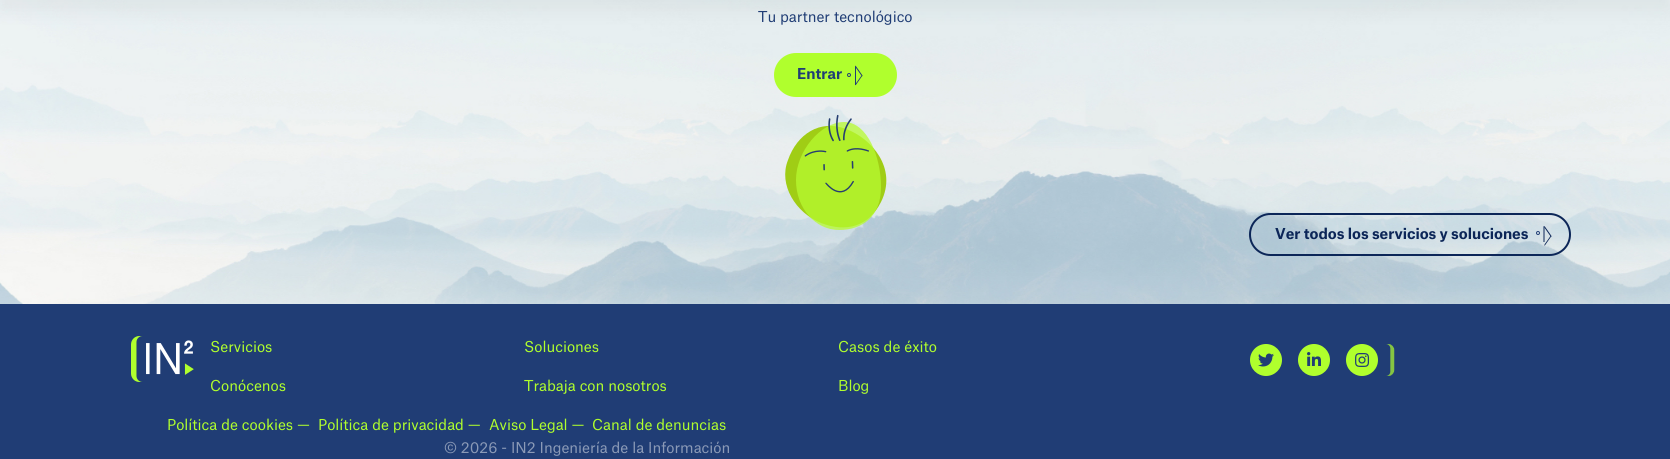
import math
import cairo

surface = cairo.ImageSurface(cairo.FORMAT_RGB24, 1670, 459)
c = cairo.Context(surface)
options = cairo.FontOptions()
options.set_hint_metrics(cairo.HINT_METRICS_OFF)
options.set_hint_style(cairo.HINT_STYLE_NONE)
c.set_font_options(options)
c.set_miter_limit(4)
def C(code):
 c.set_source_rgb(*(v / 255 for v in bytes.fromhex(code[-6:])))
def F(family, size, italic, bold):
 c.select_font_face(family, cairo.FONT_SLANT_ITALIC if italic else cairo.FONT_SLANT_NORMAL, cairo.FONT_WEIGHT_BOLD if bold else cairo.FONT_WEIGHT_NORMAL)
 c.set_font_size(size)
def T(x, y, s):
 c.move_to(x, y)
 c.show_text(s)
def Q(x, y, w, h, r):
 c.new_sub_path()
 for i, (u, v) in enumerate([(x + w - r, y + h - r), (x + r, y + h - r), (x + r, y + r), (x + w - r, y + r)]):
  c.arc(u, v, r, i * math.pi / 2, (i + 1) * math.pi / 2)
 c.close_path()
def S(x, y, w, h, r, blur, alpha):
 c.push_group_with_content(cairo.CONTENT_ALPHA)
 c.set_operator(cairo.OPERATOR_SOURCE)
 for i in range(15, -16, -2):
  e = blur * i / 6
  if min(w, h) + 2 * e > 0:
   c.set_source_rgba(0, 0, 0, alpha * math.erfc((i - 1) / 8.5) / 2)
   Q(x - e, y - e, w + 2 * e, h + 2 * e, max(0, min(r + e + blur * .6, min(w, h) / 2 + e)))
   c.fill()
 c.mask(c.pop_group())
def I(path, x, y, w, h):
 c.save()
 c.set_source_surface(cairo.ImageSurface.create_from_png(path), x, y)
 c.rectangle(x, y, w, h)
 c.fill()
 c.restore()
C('203d75')
c.paint()
I('1.png',0,0,1670,304)
C('000000')
S(0,-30,1670,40,0,10,.05)
F('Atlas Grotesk',14.4,0,0)
C('203d75')
T(758,22,'Tu partner tecnológico')
C('b0ff2d')
Q(774,53,123,44,22)
c.fill()
F('Atlas Grotesk',14.4,0,1)
C('203d75')
T(797,79,'Entrar')
c.new_path()
c.arc(849,75,1.5,0,2 * math.pi)
c.set_line_width(1)
c.stroke()
c.new_path()
c.move_to(855,85)
c.line_to(855,66)
c.line_to(856,67)
c.line_to(856,85)
c.close_path()
c.fill()
c.new_path()
c.move_to(855.5,65.5)
c.line_to(862.5,75.5)
c.line_to(862,76.5)
c.line_to(855,66.5)
c.close_path()
c.fill()
c.new_path()
c.move_to(862.5,75.5)
c.line_to(855.5,85.5)
c.line_to(855.5,84)
c.line_to(861.5,75.5)
c.close_path()
c.fill()
C('a0cd15')
c.new_path()
c.move_to(788,160)
c.curve_to(778,185,796,213,821,223)
c.curve_to(847,233,869,226,881,202)
c.curve_to(898,168,871,138,846,129)
c.curve_to(820,119,797,134,788,160)
c.close_path()
c.fill()
c.set_source_rgba(0.714,0.984,0.188,0.75)
c.new_path()
c.move_to(796,180)
c.curve_to(796,209,816,230,839,230)
c.curve_to(863,230,881,216,881,187)
c.curve_to(881,158,868,122,844,122)
c.curve_to(821,122,796,151,796,180)
c.close_path()
c.fill()
I('2.png',804,114,65,79)
Q(1250,214,320,41,20.5)
C('0c2658')
c.set_line_width(2)
c.stroke()
T(1275,239,'Ver todos los servicios y soluciones')
c.new_path()
c.arc(1538,233,1.5,0,2 * math.pi)
C('203d75')
c.set_line_width(1)
c.stroke()
C('0c2658')
c.new_path()
c.move_to(1543.5,242)
c.line_to(1543.5,226)
c.line_to(1544.5,227)
c.line_to(1544.5,242)
c.close_path()
c.fill()
c.new_path()
c.move_to(1544.5,226)
c.line_to(1551.5,236)
c.line_to(1551,237)
c.line_to(1544,227)
c.close_path()
c.fill()
c.new_path()
c.move_to(1551.5,236)
c.line_to(1544.5,246)
c.line_to(1544.5,244.5)
c.line_to(1550.5,236)
c.close_path()
c.fill()
I('3.png',131,336,63,46)
F('Atlas Grotesk',14.4,0,0)
C('b0ff2d')
T(210,352,'Servicios')
T(524,352,'Soluciones')
T(838,352,'Casos de éxito')
T(210,391,'Conócenos')
T(524,391,'Trabaja con nosotros')
T(838,391,'Blog')
c.new_path()
c.arc(1266,360,16,0,2 * math.pi)
c.fill()
I('4.png',1258,353,16,14)
c.arc(1314,360,16,0,2 * math.pi)
c.fill()
I('5.png',1307,352,14,14)
c.arc(1362,360,16,0,2 * math.pi)
c.fill()
I('6.png',1355,353,15,14)
I('7.png',1386,344,9,32)
T(167,430,'Política de cookies —')
T(318,430,'Política de privacidad —')
T(489,430,'Aviso Legal —')
T(592,430,'Canal de denuncias')
C('8b9ab7')
T(444,453,'© 2026 - IN2 Ingeniería de la Información')
surface.write_to_png('o.png')
